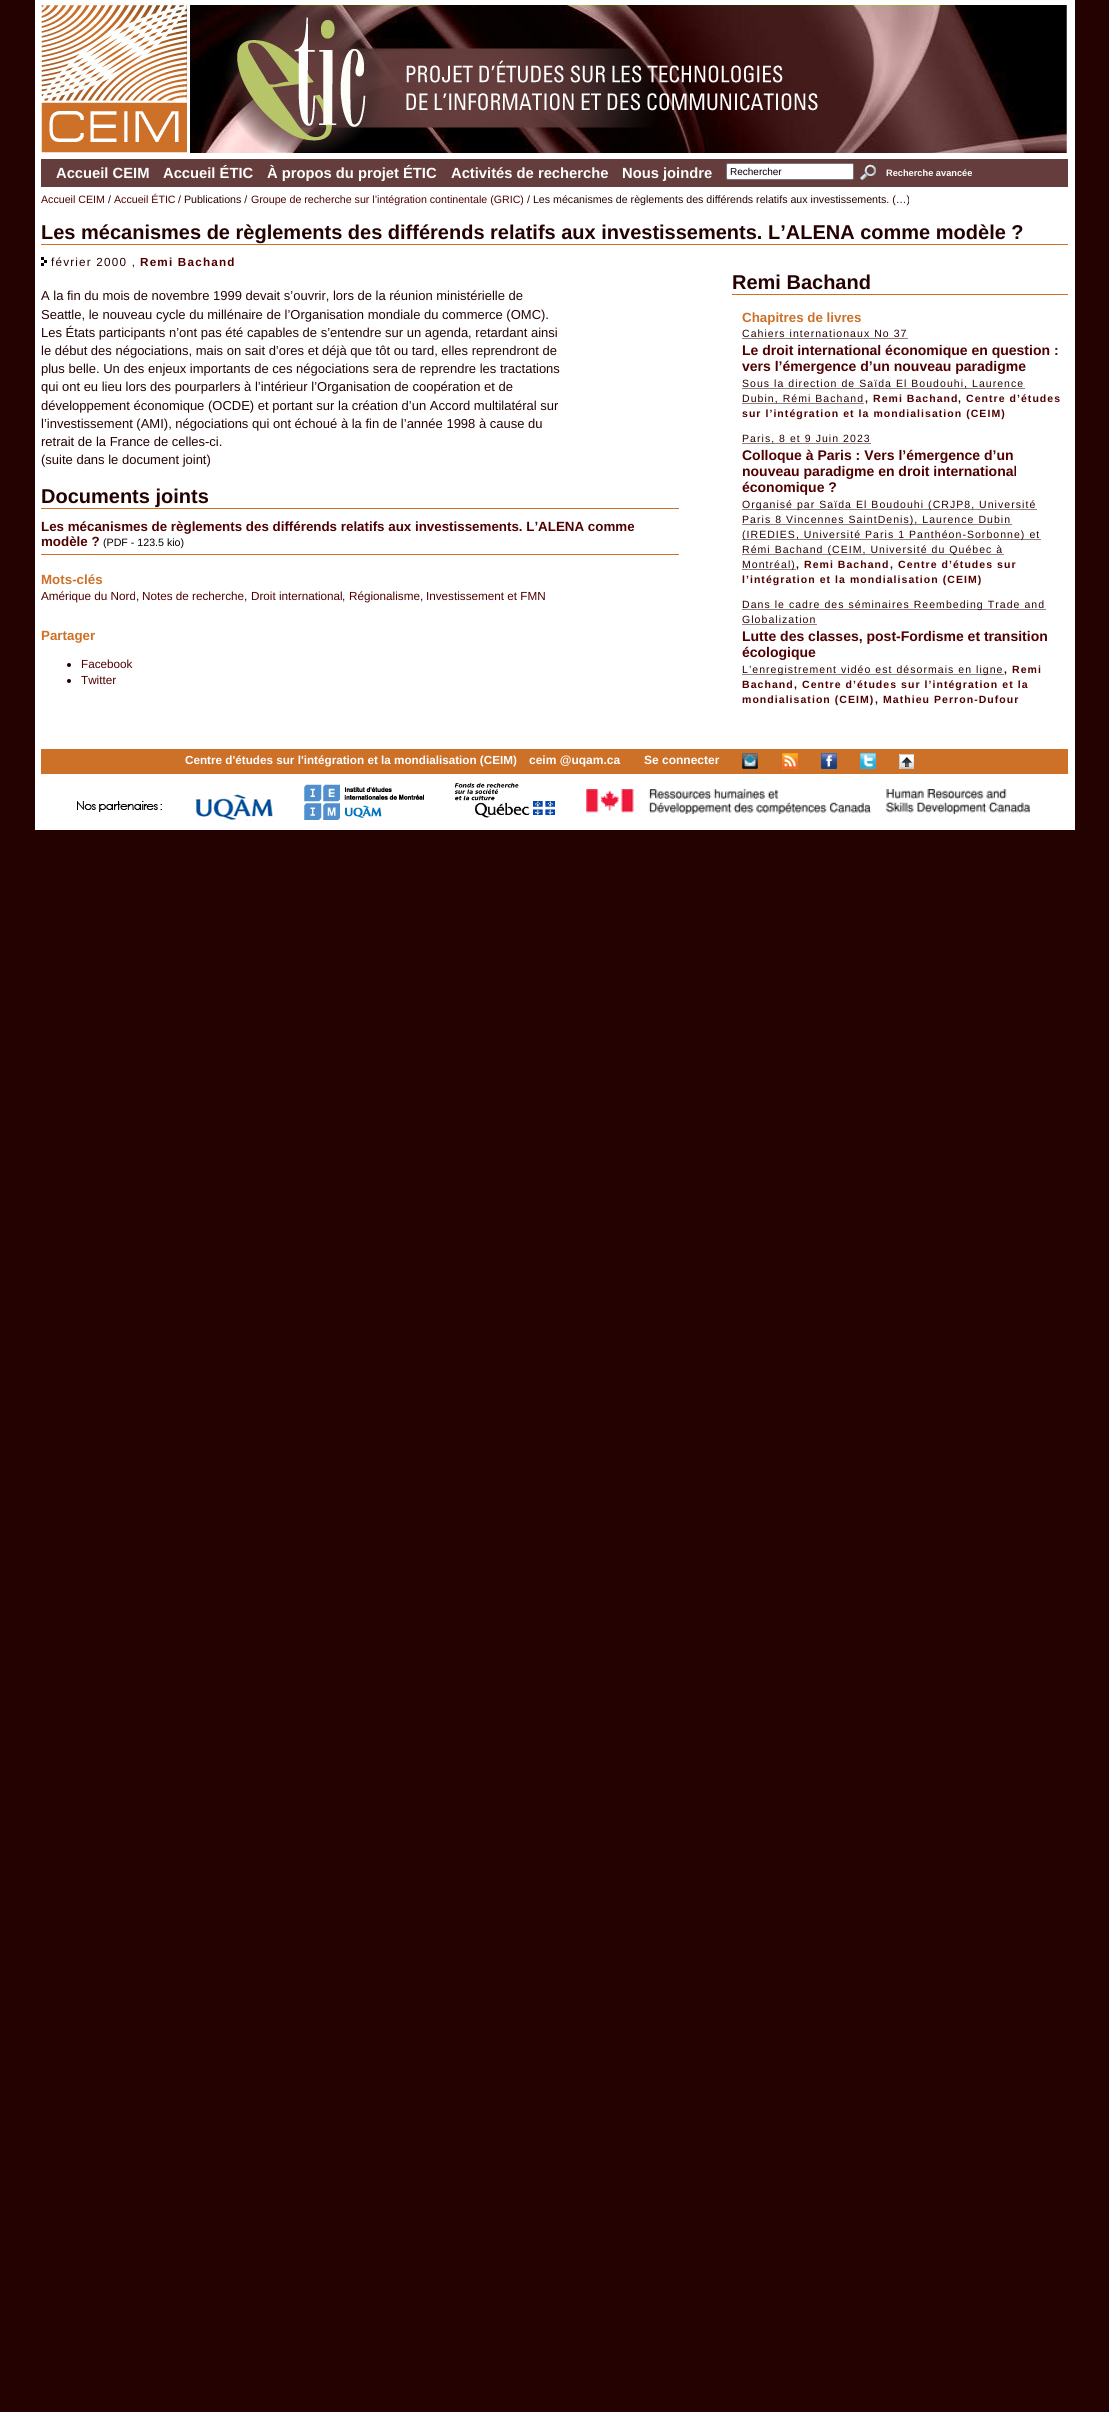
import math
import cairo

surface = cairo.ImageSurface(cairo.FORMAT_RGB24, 1109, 2412)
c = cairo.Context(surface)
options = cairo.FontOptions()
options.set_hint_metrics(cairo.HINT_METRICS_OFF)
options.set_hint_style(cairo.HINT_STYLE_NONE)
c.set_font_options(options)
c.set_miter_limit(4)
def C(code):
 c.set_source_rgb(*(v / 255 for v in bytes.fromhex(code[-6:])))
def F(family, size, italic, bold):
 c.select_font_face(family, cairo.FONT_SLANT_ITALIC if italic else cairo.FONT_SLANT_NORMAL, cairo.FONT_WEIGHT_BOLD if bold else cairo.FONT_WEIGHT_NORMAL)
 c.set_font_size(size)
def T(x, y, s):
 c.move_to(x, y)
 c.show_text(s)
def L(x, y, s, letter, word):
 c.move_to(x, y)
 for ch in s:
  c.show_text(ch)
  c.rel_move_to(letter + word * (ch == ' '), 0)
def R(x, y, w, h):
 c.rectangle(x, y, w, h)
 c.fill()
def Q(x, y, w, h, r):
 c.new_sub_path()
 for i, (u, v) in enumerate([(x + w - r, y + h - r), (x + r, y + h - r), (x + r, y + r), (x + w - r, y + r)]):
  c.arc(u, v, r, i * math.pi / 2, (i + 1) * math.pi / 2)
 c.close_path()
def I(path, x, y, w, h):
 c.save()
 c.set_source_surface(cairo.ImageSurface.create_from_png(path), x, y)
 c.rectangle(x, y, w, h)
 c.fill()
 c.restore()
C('250202')
c.paint()
C('ffffff')
R(35,0,1040,830)
I('1.png',41,3,1027,152)
C('643d3c')
R(41,159,1027,28)
F('Liberation Sans',14.75,0,1)
C('ffffff')
T(56,178,'Accueil CEIM')
T(163,178,'Accueil ÉTIC')
T(267,178,'À propos du projet ÉTIC')
T(451,178,'Activités de recherche')
T(622,178,'Nous joindre')
Q(726.5,163.5,127,16,1.5)
c.fill_preserve()
C('767676')
c.set_line_width(1)
c.stroke()
F('Liberation Sans',10,0,0)
C('000000')
T(730,175,'Rechercher')
I('2.png',860,164,16,16)
F('Liberation Sans',9.25,0,1)
C('ffffff')
T(886,176,'Recherche avancée')
F('Liberation Sans',10.65,0,0)
C('500000')
T(41,203,'Accueil CEIM')
C('250202')
T(108,203,'/')
C('500000')
T(114,203,'Accueil ÉTIC')
C('250202')
T(178,203,'/ Publications /')
C('500000')
T(251,203,'Groupe de recherche sur l’intégration continentale (GRIC)')
C('250202')
T(527,203,'/ Les mécanismes de règlements des différends relatifs aux investissements. (…)')
C('cd7028')
R(41,244,1027,1)
F('Liberation Sans',20,0,1)
C('250202')
T(41,239,'Les mécanismes de règlements des différends relatifs aux investissements. L’ALENA comme modèle ?')
I('3.png',41,257,6,9)
F('Liberation Sans',11.7,0,0)
L(51,266,'février 2000 ,',1.2,0)
F('Liberation Sans',11.7,0,1)
C('500000')
L(140,266,'Remi Bachand',1.2,0)
F('Liberation Sans',13,0,0)
C('250202')
T(41,300,'A la fin du mois de novembre 1999 devait s’ouvrir, lors de la réunion ministérielle de')
T(41,319,'Seattle, le nouveau cycle du millénaire de l’Organisation mondiale du commerce (OMC).')
T(41,337,'Les États participants n’ont pas été capables de s’entendre sur un agenda, retardant ainsi')
T(41,355,'le début des négociations, mais on sait d’ores et déjà que tôt ou tard, elles reprendront de')
T(41,373,'plus belle. Un des enjeux importants de ces négociations sera de reprendre les tractations')
T(41,391,'qui ont eu lieu lors des pourparlers à l’intérieur l’Organisation de coopération et de')
T(41,410,'développement économique (OCDE) et portant sur la création d’un Accord multilatéral sur')
T(41,428,'l’investissement (AMI), négociations qui ont échoué à la fin de l’année 1998 à cause du')
T(41,446,'retrait de la France de celles-ci.')
T(41,464,'(suite dans le document joint)')
C('cd7028')
R(41,554,638,1)
R(41,508,638,1)
F('Liberation Sans',20,0,1)
C('250202')
T(41,503,'Documents joints')
F('Liberation Sans',13.35,0,1)
C('500000')
T(41,531,'Les mécanismes de règlements des différends relatifs aux investissements. L’ALENA comme')
T(41,546,'modèle ?')
F('Liberation Sans',10.65,0,0)
C('000000')
T(103,546,'(PDF - 123.5 kio)')
F('Liberation Sans',13.35,0,1)
C('cd7028')
T(41,584,'Mots-clés')
F('Liberation Sans',11.7,0,0)
C('500000')
T(41,600,'Amérique du Nord')
C('250202')
T(136,600,',')
C('500000')
T(142,600,'Notes de recherche')
C('250202')
T(244,600,',')
C('500000')
T(251,600,'Droit international')
C('250202')
T(342,600,',')
C('500000')
T(349,600,'Régionalisme')
C('250202')
T(420,600,',')
C('500000')
T(426,600,'Investissement et FMN')
F('Liberation Sans',13.35,0,1)
C('cd7028')
T(41,640,'Partager')
C('250202')
c.new_path()
c.arc(69,665,2,0,2 * math.pi)
c.fill()
F('Liberation Sans',11.7,0,0)
C('500000')
T(81,668,'Facebook')
C('250202')
c.new_path()
c.arc(69,681,2,0,2 * math.pi)
c.fill()
C('500000')
T(81,684,'Twitter')
C('cd7028')
R(732,294,336,1)
F('Liberation Sans',20,0,1)
C('250202')
T(732,289,'Remi Bachand')
F('Liberation Sans',13.35,0,1)
C('cd7028')
T(742,322,'Chapitres de livres')
F('Liberation Sans',10.5,0,0)
C('250202')
L(742,337,'Cahiers internationaux No 37',1.05,0)
c.new_path()
c.move_to(742.5,338.5)
c.line_to(908,338.5)
c.set_dash([1,1])
c.stroke()
F('Liberation Sans',14,0,1)
C('500000')
T(742,355,'Le droit international économique en question :')
T(742,371,'vers l’émergence d’un nouveau paradigme')
c.new_path()
c.move_to(742.5,388.5)
c.line_to(1025,388.5)
C('250202')
c.stroke()
F('Liberation Sans',10.5,0,0)
L(742,387,'Sous la direction de Saïda El Boudouhi, Laurence',1.05,0)
c.new_path()
c.move_to(742.5,403.5)
c.line_to(864.5,403.5)
c.stroke()
L(742,402,'Dubin, Rémi Bachand',1.05,0)
F('Liberation Sans',10.5,0,1)
L(865,402,',',1.05,0)
C('500000')
L(873,402,'Remi Bachand',1.05,0)
C('250202')
L(958,402,',',1.05,0)
C('500000')
L(966,402,'Centre d’études',1.05,0)
L(742,417,'sur l’intégration et la mondialisation (CEIM)',1.05,0)
c.new_path()
c.move_to(742.5,443.5)
c.line_to(871,443.5)
C('250202')
c.stroke()
F('Liberation Sans',10.5,0,0)
L(742,442,'Paris, 8 et 9 Juin 2023',1.05,0)
F('Liberation Sans',14,0,1)
C('500000')
T(742,460,'Colloque à Paris : Vers l’émergence d’un')
T(742,476,'nouveau paradigme en droit international')
T(742,492,'économique ?')
c.new_path()
c.move_to(742.5,509.5)
c.line_to(1037,509.5)
C('250202')
c.stroke()
F('Liberation Sans',10.5,0,0)
L(742,508,'Organisé par Saïda El Boudouhi (CRJP8, Université',1.05,0)
c.new_path()
c.move_to(742.5,524.5)
c.line_to(1012,524.5)
c.stroke()
L(742,523,'Paris 8 Vincennes SaintDenis), Laurence Dubin',1.05,0)
c.new_path()
c.move_to(742.5,539.5)
c.line_to(1041,539.5)
c.stroke()
L(742,538,'(IREDIES, Université Paris 1 Panthéon-Sorbonne) et',1.05,0)
c.new_path()
c.move_to(742.5,554.5)
c.line_to(1004,554.5)
c.stroke()
L(742,553,'Rémi Bachand (CEIM, Université du Québec à',1.05,0)
c.new_path()
c.move_to(742.5,569.5)
c.line_to(796.5,569.5)
c.stroke()
L(742,568,'Montréal)',1.05,0)
F('Liberation Sans',10.5,0,1)
L(796,568,',',1.05,0)
C('500000')
L(804,568,'Remi Bachand',1.05,0)
C('250202')
L(890,568,',',1.05,0)
C('500000')
L(898,568,'Centre d’études sur',1.05,0)
L(742,583,'l’intégration et la mondialisation (CEIM)',1.05,0)
c.new_path()
c.move_to(742.5,609.5)
c.line_to(1046,609.5)
C('250202')
c.stroke()
F('Liberation Sans',10.5,0,0)
L(742,608,'Dans le cadre des séminaires Reembeding Trade and',1.05,0)
L(742,623,'Globalization',1.05,0)
c.new_path()
c.move_to(742.5,624.5)
c.line_to(817,624.5)
c.stroke()
F('Liberation Sans',14,0,1)
C('500000')
T(742,641,'Lutte des classes, post-Fordisme et transition')
T(742,657,'écologique')
c.new_path()
c.move_to(742.5,674.5)
c.line_to(1004.5,674.5)
C('250202')
c.stroke()
F('Liberation Sans',10.5,0,0)
L(742,673,'L’enregistrement vidéo est désormais en ligne',1.05,0)
F('Liberation Sans',10.5,0,1)
L(1004,673,',',1.05,0)
C('500000')
L(1012,673,'Remi',1.05,0)
L(742,688,'Bachand',1.05,0)
C('250202')
L(794,688,',',1.05,0)
C('500000')
L(802,688,'Centre d’études sur l’intégration et la',1.05,0)
L(742,703,'mondialisation (CEIM)',1.05,0)
C('250202')
L(875,703,',',1.05,0)
C('500000')
L(883,703,'Mathieu Perron-Dufour',1.05,0)
C('cd7028')
R(41,749,1027,25)
F('Liberation Sans',11.7,0,1)
C('ffffff')
T(185,764,'Centre d\'études sur l\'intégration et la mondialisation (CEIM)')
F('Liberation Sans',12,0,1)
T(529,764,'ceim @uqam.ca')
T(644,764,'Se connecter')
I('4.png',742,753,16,16)
I('5.png',782,753,16,16)
I('6.png',821,753,16,16)
I('7.png',860,753,16,16)
I('8.png',899,754,15,15)
I('9.png',77,801,85,11)
I('10.png',195,794,79,27)
I('11.png',304,784,120,36)
I('12.png',455,782,100,36)
I('13.png',586,789,444,25)
surface.write_to_png('o.png')
